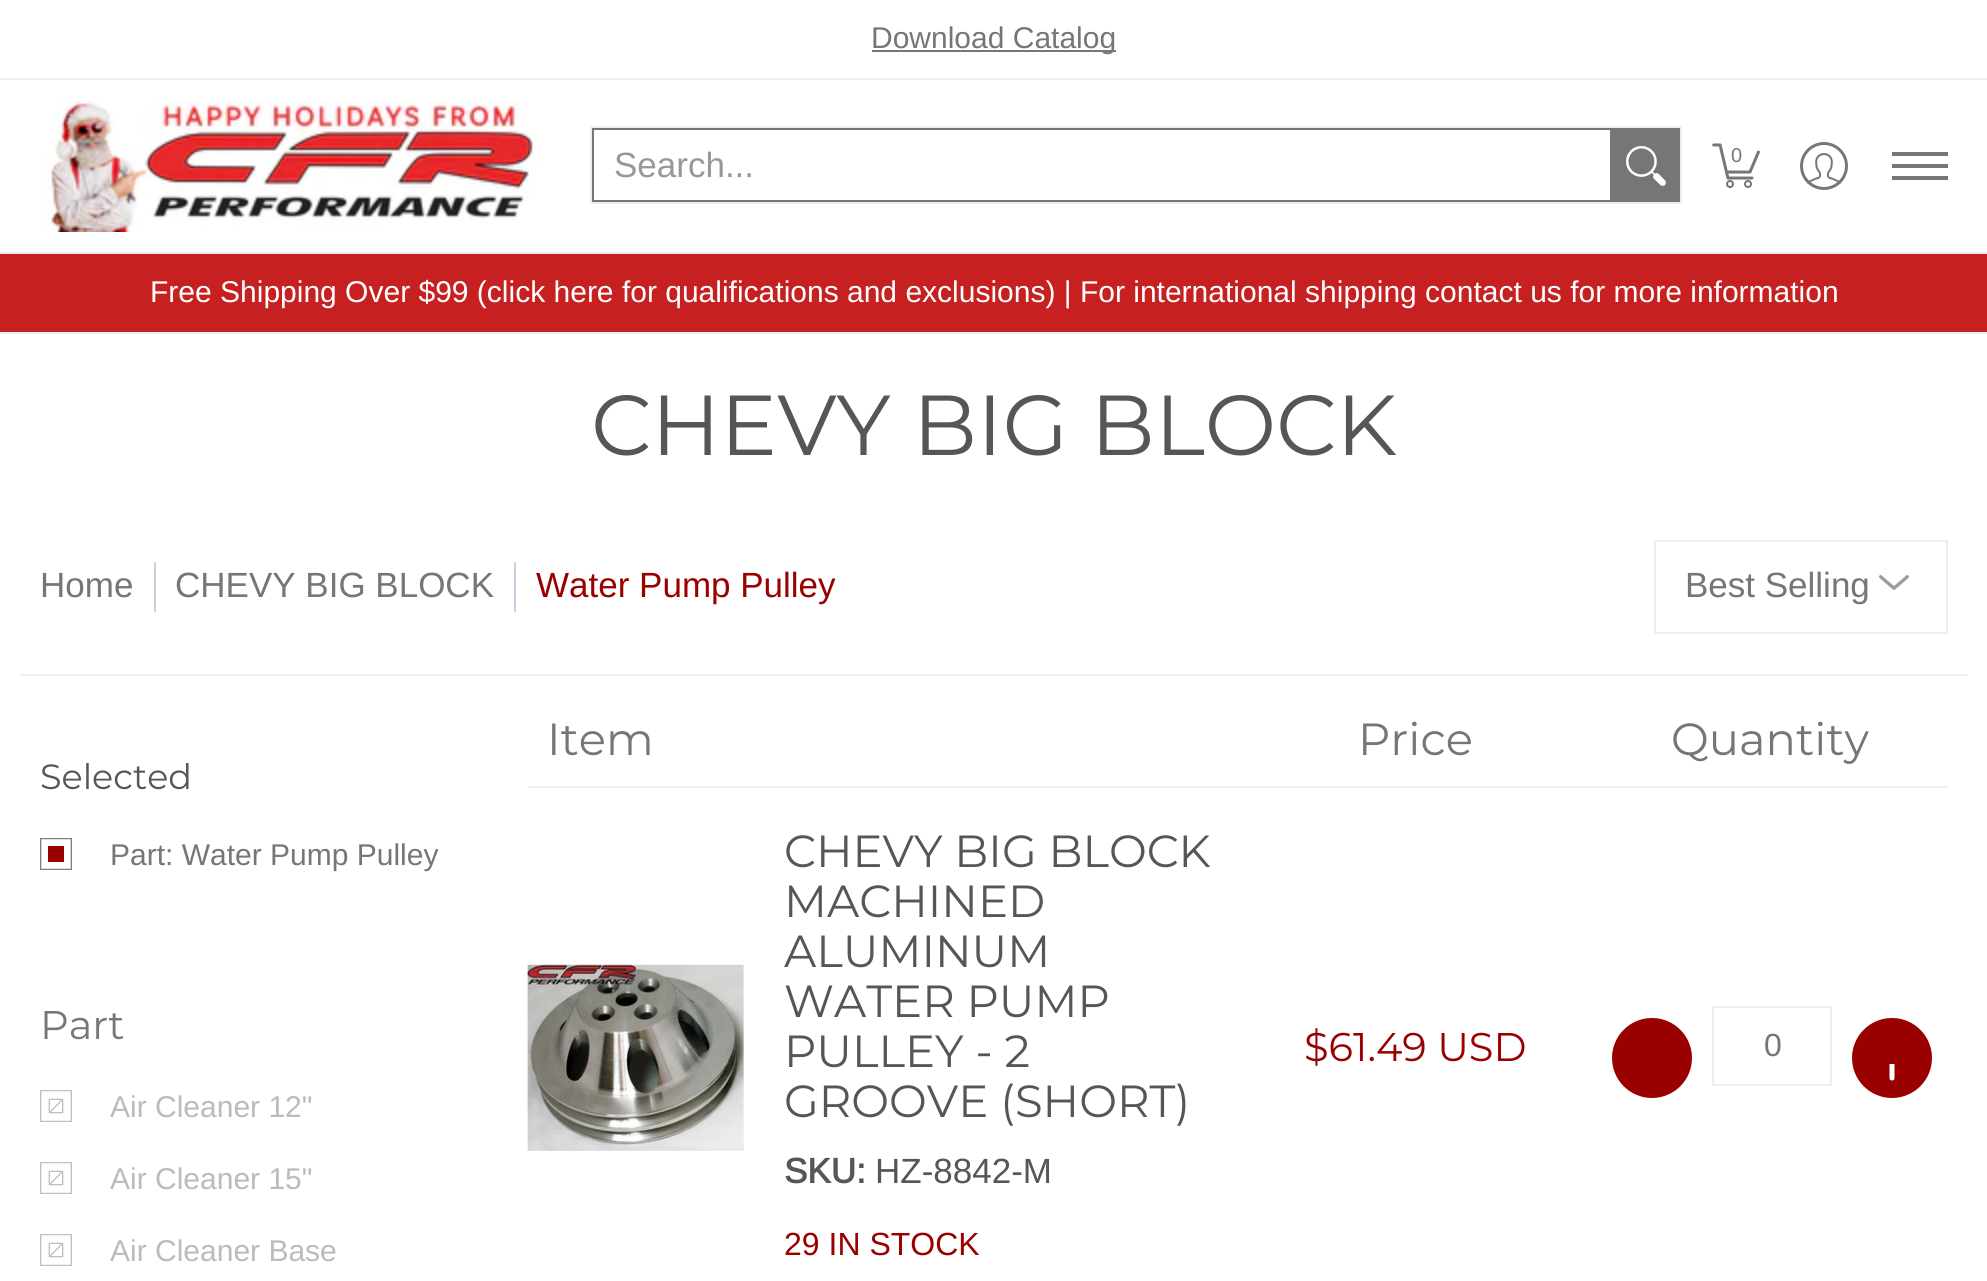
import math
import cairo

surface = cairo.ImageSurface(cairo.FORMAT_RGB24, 1987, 1281)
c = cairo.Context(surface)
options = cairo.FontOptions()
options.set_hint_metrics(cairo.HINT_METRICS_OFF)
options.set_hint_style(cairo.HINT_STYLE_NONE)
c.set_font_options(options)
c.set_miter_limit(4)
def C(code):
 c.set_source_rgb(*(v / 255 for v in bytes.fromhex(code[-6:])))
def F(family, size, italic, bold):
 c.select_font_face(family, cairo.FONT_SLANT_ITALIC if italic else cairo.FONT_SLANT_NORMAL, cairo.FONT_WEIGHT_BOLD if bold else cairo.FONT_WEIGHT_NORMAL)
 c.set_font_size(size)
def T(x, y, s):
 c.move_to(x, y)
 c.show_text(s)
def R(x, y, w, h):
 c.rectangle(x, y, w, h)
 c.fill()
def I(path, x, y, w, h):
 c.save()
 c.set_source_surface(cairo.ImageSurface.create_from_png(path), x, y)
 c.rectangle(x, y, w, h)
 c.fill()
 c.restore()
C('ffffff')
c.paint()
C('edeef4')
R(0,78,1987,2)
C('767676')
R(872,50,244,2)
F('Arimo',30,0,0)
T(871,48,'Download Catalog')
C('edeef4')
R(0,252,1987,2)
I('1.png',40,100,497,132)
c.rectangle(591,127,1090,76)
c.stroke()
c.rectangle(593,129,1018,72)
C('767676')
c.stroke()
F('Arimo',35,0,0)
C('989898')
T(614,177,'Search...')
C('767676')
R(1612,128,68,74)
I('2.png',1626,146,40,40)
I('3.png',1712,143,48,45)
F('Liberation Sans',20,0,0)
T(1731,162,'0')
I('4.png',1800,142,48,48)
R(1892,152,56,4)
R(1892,176,56,4)
R(1892,164,56,4)
C('c62020')
R(0,254,1987,78)
C('edeef4')
R(0,332,1987,2)
F('Arimo',30,0,0)
C('ffffff')
T(150,302,'Free Shipping Over $99 (click here for qualifications and exclusions) | For international shipping contact us for more information')
F('Montserrat',85,0,0)
C('565656')
T(591,455,'CHEVY BIG BLOCK')
C('edeef4')
R(20,674,1948,2)
F('Arimo',35,0,0)
C('767676')
T(40,597,'Home')
C('cdd0e1')
R(154,562,2,50)
C('767676')
T(175,597,'CHEVY BIG BLOCK')
C('cdd0e1')
R(514,562,2,50)
C('990000')
T(536,597,'Water Pump Pulley')
I('5.png',1879,575,30,15)
c.rectangle(1655,541,292,92)
C('edeef4')
c.stroke()
C('767676')
T(1685,597,'Best Selling')
F('Montserrat',35,0,0)
C('565656')
T(40,789,'Selected')
I('6.png',40,838,32,32)
F('Arimo',30,0,0)
C('767676')
T(110,865,'Part: Water Pump Pulley')
C('990000')
R(48,846,16,16)
F('Montserrat',40,0,0)
C('767676')
T(40,1039,'Part')
I('7.png',40,1090,32,32)
F('Arimo',30,0,0)
C('bbbbbb')
T(110,1117,'Air Cleaner 12"')
I('8.png',48,1098,16,16)
I('7.png',40,1162,32,32)
T(110,1189,'Air Cleaner 15"')
I('8.png',48,1170,16,16)
I('7.png',40,1234,32,32)
T(110,1261,'Air Cleaner Base')
I('8.png',48,1242,16,16)
C('edeef4')
R(528,786,1420,2)
F('Montserrat',45,0,0)
C('767676')
T(547,755,'Item')
T(1358,755,'Price')
T(1671,755,'Quantity')
I('9.png',527,964,217,187)
C('565656')
T(784,867,'CHEVY BIG BLOCK')
T(784,917,'MACHINED')
T(784,967,'ALUMINUM')
T(784,1017,'WATER PUMP')
T(784,1067,'PULLEY - 2')
T(784,1117,'GROOVE (SHORT)')
F('Arimo',35,0,1)
T(784,1183,'SKU:')
F('Arimo',35,0,0)
T(875,1183,'HZ-8842-M')
F('Arimo',32,0,0)
C('990000')
T(784,1255,'29 IN STOCK')
F('Montserrat',40,0,0)
T(1304,1061,'$61.49 USD')
c.new_path()
c.arc(1652,1058,40,0,2 * math.pi)
c.fill()
c.rectangle(1713,1007,118,78)
C('edeef4')
c.stroke()
F('Arimo',32,0,0)
C('767676')
T(1764,1056,'0')
C('990000')
c.new_path()
c.arc(1892,1058,40,0,2 * math.pi)
c.fill()
I('10.png',1889,1064,6,17)
surface.write_to_png('o.png')
